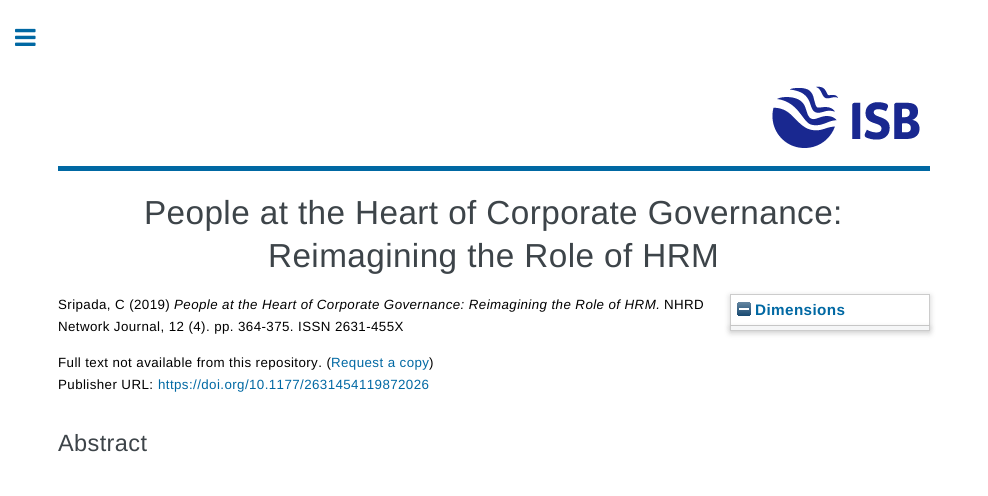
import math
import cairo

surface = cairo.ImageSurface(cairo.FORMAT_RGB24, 988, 496)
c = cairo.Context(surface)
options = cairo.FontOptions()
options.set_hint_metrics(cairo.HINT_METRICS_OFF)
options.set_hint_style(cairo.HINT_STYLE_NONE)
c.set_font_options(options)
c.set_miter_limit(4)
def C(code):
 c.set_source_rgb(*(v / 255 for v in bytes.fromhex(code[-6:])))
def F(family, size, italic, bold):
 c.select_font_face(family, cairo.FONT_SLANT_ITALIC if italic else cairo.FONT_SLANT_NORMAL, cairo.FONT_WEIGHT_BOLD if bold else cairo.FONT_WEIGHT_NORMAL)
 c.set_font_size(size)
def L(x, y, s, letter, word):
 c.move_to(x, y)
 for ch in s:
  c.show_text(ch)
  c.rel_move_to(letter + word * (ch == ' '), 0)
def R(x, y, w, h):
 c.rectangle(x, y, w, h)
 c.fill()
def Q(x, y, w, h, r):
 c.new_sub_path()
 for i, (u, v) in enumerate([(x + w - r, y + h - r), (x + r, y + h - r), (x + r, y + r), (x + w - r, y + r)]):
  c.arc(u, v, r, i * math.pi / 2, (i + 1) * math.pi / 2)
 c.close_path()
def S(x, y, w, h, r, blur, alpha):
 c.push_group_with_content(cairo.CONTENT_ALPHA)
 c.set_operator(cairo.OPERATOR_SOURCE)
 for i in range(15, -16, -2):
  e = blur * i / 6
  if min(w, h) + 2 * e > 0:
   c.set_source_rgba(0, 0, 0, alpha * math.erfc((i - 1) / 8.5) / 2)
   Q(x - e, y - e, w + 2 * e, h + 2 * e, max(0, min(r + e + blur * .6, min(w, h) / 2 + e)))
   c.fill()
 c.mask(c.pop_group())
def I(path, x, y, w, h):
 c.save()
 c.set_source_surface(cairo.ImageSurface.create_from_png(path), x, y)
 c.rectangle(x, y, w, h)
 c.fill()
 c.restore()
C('ffffff')
c.paint()
I('1.png',15,28,21,18)
C('0068a3')
R(58,166,872,5)
I('2.png',772,86,148,62)
F('Liberation Sans',33.3,0,0)
C('3d4449')
L(144,224,'People at the Heart of Corporate Governance:',.4,0)
L(268,267,'Reimagining the Role of HRM',.4,0)
F('Liberation Sans',13.35,0,0)
C('000000')
L(58,309,'Sripada, C (2019)',.4,0)
F('Liberation Sans',13.35,1,0)
L(174,309,'People at the Heart of Corporate Governance: Reimagining the Role of HRM.',.4,0)
F('Liberation Sans',13.35,0,0)
L(664,309,'NHRD',.4,0)
L(58,331,'Network Journal, 12 (4). pp. 364-375. ISSN 2631-455X',.4,0)
L(58,367,'Full text not available from this repository. (',.4,0)
C('0068a3')
L(331,367,'Request a copy',.4,0)
C('000000')
L(429,367,')',.4,0)
L(58,389,'Publisher URL:',.4,0)
C('0068a3')
L(158,389,'https://doi.org/10.1177/2631454119872026',.4,0)
F('Liberation Sans',23.5,0,0)
C('3d4449')
L(58,451,'Abstract',.4,0)
c.save()
c.set_fill_rule(cairo.FILL_RULE_EVEN_ODD)
c.new_path()
c.move_to(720,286)
c.line_to(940,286)
c.line_to(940,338)
c.line_to(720,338)
c.close_path()
c.move_to(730,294)
c.line_to(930,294)
c.line_to(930,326)
c.line_to(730,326)
c.close_path()
c.clip()
C('646464')
S(730,296,200,32,0,3,.3)
c.restore()
c.rectangle(730.5,294.5,199,31)
C('cccccc')
c.set_line_width(1)
c.stroke()
I('3.png',737,302,14,14)
F('Liberation Sans',15.25,0,1)
C('0068a3')
L(755,315,'Dimensions',.4,0)
C('646464')
S(730,328,200,5,0,3,.3)
C('f5f6f7')
R(730,326,200,4)
C('cccccc')
R(929,326,1,5)
R(730,330,200,1)
R(730,326,1,5)
surface.write_to_png('o.png')
